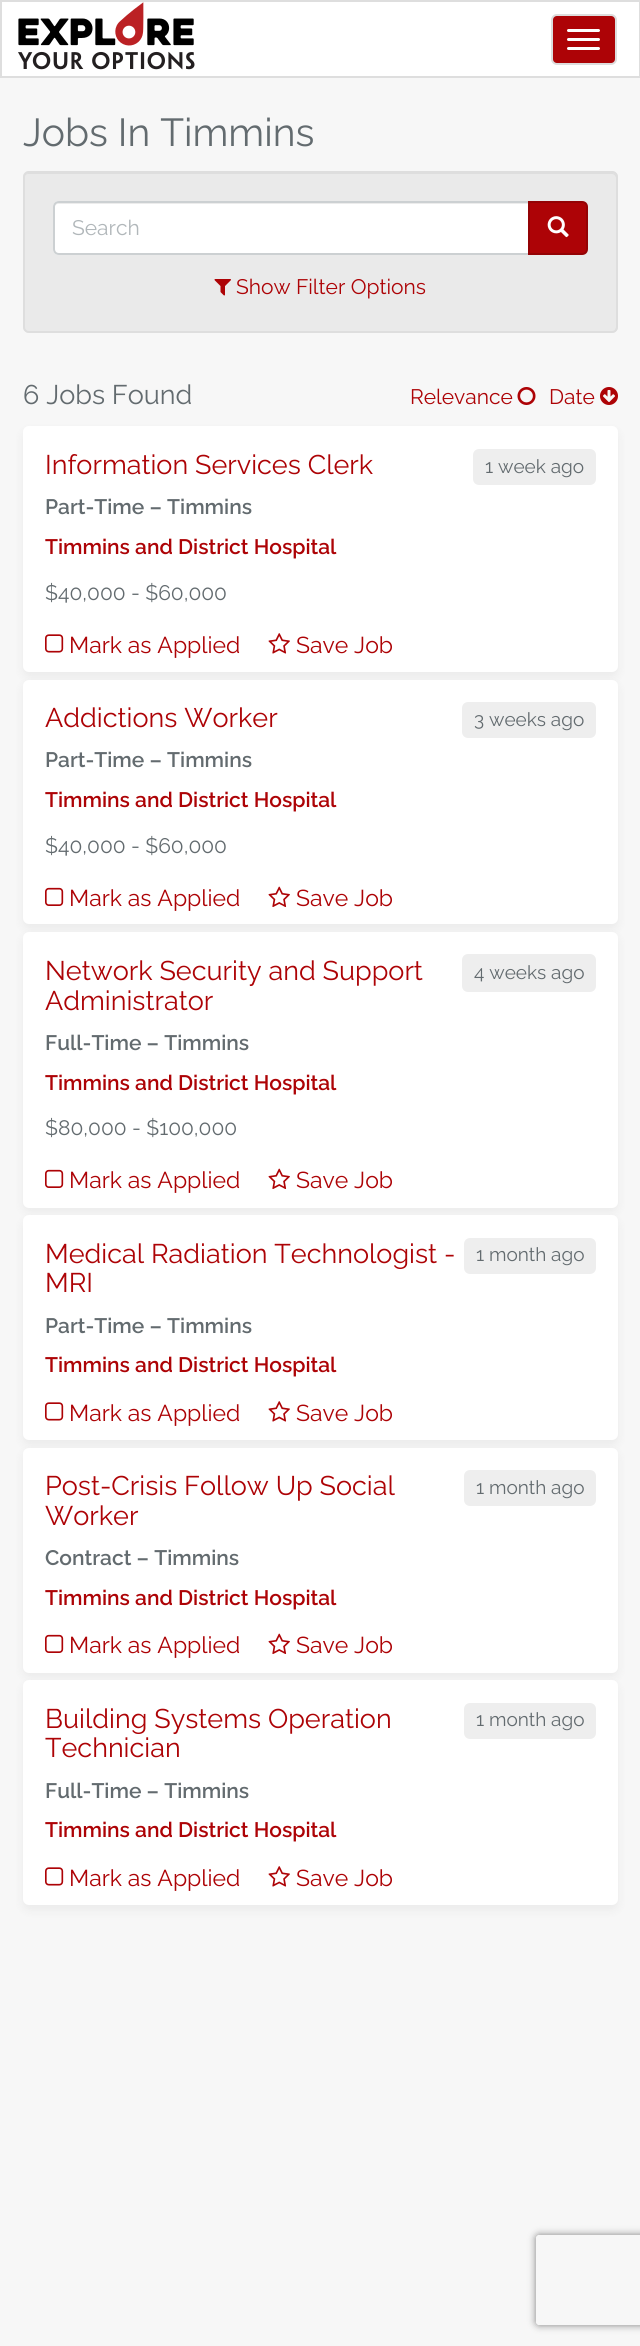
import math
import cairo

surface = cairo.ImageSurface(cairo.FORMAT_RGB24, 640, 2346)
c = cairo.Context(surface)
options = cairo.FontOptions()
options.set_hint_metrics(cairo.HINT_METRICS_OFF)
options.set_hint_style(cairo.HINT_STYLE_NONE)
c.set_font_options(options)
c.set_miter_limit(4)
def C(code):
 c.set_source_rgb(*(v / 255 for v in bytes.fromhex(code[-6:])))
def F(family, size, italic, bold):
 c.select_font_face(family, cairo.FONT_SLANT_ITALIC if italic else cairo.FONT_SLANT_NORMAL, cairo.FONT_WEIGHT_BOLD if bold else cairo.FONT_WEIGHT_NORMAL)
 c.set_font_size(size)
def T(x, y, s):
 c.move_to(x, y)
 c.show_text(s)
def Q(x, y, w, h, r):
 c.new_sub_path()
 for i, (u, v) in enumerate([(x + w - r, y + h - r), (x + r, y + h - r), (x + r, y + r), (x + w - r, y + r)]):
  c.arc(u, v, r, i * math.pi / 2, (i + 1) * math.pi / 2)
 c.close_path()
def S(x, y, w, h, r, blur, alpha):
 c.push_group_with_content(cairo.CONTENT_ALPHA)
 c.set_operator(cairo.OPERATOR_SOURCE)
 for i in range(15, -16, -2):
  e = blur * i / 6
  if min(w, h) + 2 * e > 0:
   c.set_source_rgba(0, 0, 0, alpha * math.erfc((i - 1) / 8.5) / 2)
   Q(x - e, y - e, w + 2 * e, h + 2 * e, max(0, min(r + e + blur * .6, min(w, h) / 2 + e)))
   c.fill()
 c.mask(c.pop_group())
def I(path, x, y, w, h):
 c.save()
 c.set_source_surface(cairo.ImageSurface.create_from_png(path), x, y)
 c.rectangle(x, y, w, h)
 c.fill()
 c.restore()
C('f7f7f7')
c.paint()
C('ffffff')
c.rectangle(1,1,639,76)
c.fill_preserve()
C('dedede')
c.stroke()
I('1.png',18,2,177,68)
C('ad0306')
Q(552,15,64,49,5)
c.fill_preserve()
C('dddddd')
c.stroke()
C('ffffff')
Q(567,29,33,3,1.5)
c.fill()
Q(567,38,33,3,1.5)
c.fill()
Q(567,47,33,3,1.5)
c.fill()
F('Raleway',39,0,0)
C('636b6f')
T(23,146,'Jobs In Timmins')
C('eaeaea')
Q(23,171,595,162,6)
c.fill()
C('dedede')
c.new_path()
c.move_to(28,174)
c.line_to(612,174)
c.curve_to(614,174,616,176,616,178)
c.line_to(616,328)
c.line_to(615,331)
c.curve_to(616,330,617,328,617,327)
c.line_to(617,178)
c.curve_to(617,175,615,173,612,173)
c.line_to(29,173)
c.curve_to(26,173,24,175,24,178)
c.curve_to(24,176,26,174,28,174)
c.close_path()
c.fill()
Q(24,172,593,160,5)
c.stroke()
C('ffffff')
c.new_path()
c.move_to(59,201)
c.line_to(530,201)
c.line_to(530,255)
c.line_to(59,255)
c.curve_to(55.5,255,53,252.5,53,249)
c.line_to(53,207)
c.curve_to(53,203.5,55.5,201,59,201)
c.close_path()
c.fill()
C('ececec')
c.new_path()
c.move_to(58,204)
c.line_to(528,204)
c.line_to(528,203)
c.line_to(59,203)
c.curve_to(56,203,54,205,54,208)
c.curve_to(54,206,56,204,58,204)
c.close_path()
c.fill()
c.new_path()
c.move_to(59,202)
c.line_to(529,202)
c.line_to(529,254)
c.line_to(59,254)
c.curve_to(56,254,54,252,54,249)
c.line_to(54,207)
c.curve_to(54,204,56,202,59,202)
c.close_path()
C('ccd0d2')
c.stroke()
F('Raleway',21,0,0)
C('b1b7ba')
T(72,235,'Search')
C('ad0306')
c.new_path()
c.move_to(529,202)
c.line_to(582,202)
c.curve_to(585,202,587,204,587,207)
c.line_to(587,249)
c.curve_to(587,252,585,254,582,254)
c.line_to(529,254)
c.close_path()
c.fill_preserve()
C('940305')
c.stroke()
I('2.png',547,216,22,22)
I('3.png',214,279,17,17)
C('ad0306')
T(236,294,'Show Filter Options')
F('Raleway',27,0,0)
C('636b6f')
T(23,404,'6 Jobs Found')
C('000000')
S(23,431,595,246,6,5,.05)
C('ffffff')
Q(23,426,595,246,6)
c.fill()
C('ad0306')
T(45,474,'Information Services Clerk')
C('eeeeee')
Q(473,449,123,36,6)
c.fill()
F('Raleway',19,0,0)
C('636b6f')
T(485,473,'1 week ago')
F('Raleway SemiBold',21,0,0)
T(45,514,'Part-Time – Timmins')
C('ad0306')
T(45,554,'Timmins and District Hospital')
F('Raleway',21,0,0)
C('636b6f')
T(45,600,'$40,000 - $60,000')
I('4.png',45,634,19,19)
F('Raleway',23,0,0)
C('ad0306')
T(69,653,'Mark as Applied')
I('5.png',268,633,22,21)
T(296,653,'Save Job')
C('000000')
S(23,684,595,245,6,5,.05)
C('ffffff')
Q(23,680,595,244,6)
c.fill()
F('Raleway',27,0,0)
C('ad0306')
T(45,727,'Addictions Worker')
C('eeeeee')
Q(462,702,134,36,6)
c.fill()
F('Raleway',19,0,0)
C('636b6f')
T(474,726,'3 weeks ago')
F('Raleway SemiBold',21,0,0)
T(45,767,'Part-Time – Timmins')
C('ad0306')
T(45,807,'Timmins and District Hospital')
F('Raleway',21,0,0)
C('636b6f')
T(45,853,'$40,000 - $60,000')
I('6.png',45,887,19,19)
F('Raleway',23,0,0)
C('ad0306')
T(69,906,'Mark as Applied')
I('7.png',268,886,22,21)
T(296,906,'Save Job')
C('000000')
S(23,936,595,276,6,5,.05)
C('ffffff')
Q(23,932,595,276,6)
c.fill()
F('Raleway',27,0,0)
C('ad0306')
T(45,980,'Network Security and Support')
T(45,1010,'Administrator')
C('eeeeee')
Q(462,954,134,38,6)
c.fill()
F('Raleway',19,0,0)
C('636b6f')
T(474,979,'4 weeks ago')
F('Raleway SemiBold',21,0,0)
T(45,1050,'Full-Time – Timmins')
C('ad0306')
T(45,1090,'Timmins and District Hospital')
F('Raleway',21,0,0)
C('636b6f')
T(45,1135,'$80,000 - $100,000')
I('6.png',45,1169,19,19)
F('Raleway',23,0,0)
C('ad0306')
T(69,1188,'Mark as Applied')
I('7.png',268,1168,22,21)
T(296,1188,'Save Job')
C('000000')
S(23,1220,595,225,6,5,.05)
C('ffffff')
Q(23,1215,595,225,6)
c.fill()
F('Raleway',27,0,0)
C('ad0306')
T(45,1263,'Medical Radiation Technologist -')
T(45,1292,'MRI')
C('eeeeee')
Q(464,1238,132,36,6)
c.fill()
F('Raleway',19,0,0)
C('636b6f')
T(476,1261,'1 month ago')
F('Raleway SemiBold',21,0,0)
T(45,1333,'Part-Time – Timmins')
C('ad0306')
T(45,1372,'Timmins and District Hospital')
I('4.png',45,1402,19,19)
F('Raleway',23,0,0)
T(69,1421,'Mark as Applied')
I('5.png',268,1401,22,21)
T(296,1421,'Save Job')
C('000000')
S(23,1452,595,225,6,5,.05)
C('ffffff')
Q(23,1448,595,225,6)
c.fill()
F('Raleway',27,0,0)
C('ad0306')
T(45,1495,'Post-Crisis Follow Up Social')
T(45,1525,'Worker')
C('eeeeee')
Q(464,1470,132,36,6)
c.fill()
F('Raleway',19,0,0)
C('636b6f')
T(476,1494,'1 month ago')
F('Raleway SemiBold',21,0,0)
T(45,1565,'Contract – Timmins')
C('ad0306')
T(45,1605,'Timmins and District Hospital')
I('6.png',45,1634,19,19)
F('Raleway',23,0,0)
T(69,1653,'Mark as Applied')
I('7.png',268,1633,22,21)
T(296,1653,'Save Job')
C('000000')
S(23,1685,595,225,6,5,.05)
C('ffffff')
Q(23,1680,595,225,6)
c.fill()
F('Raleway',27,0,0)
C('ad0306')
T(45,1728,'Building Systems Operation')
T(45,1757,'Technician')
C('eeeeee')
Q(464,1703,132,36,6)
c.fill()
F('Raleway',19,0,0)
C('636b6f')
T(476,1726,'1 month ago')
F('Raleway SemiBold',21,0,0)
T(45,1798,'Full-Time – Timmins')
C('ad0306')
T(45,1837,'Timmins and District Hospital')
I('4.png',45,1867,19,19)
F('Raleway',23,0,0)
T(69,1886,'Mark as Applied')
I('5.png',268,1866,22,21)
T(296,1886,'Save Job')
F('Raleway',21,0,0)
T(410,404,'Relevance')
I('8.png',517,387,19,18)
T(549,404,'Date')
I('9.png',600,387,18,18)
c.save()
c.set_fill_rule(cairo.FILL_RULE_EVEN_ODD)
c.new_path()
c.move_to(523,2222)
c.line_to(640,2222)
c.line_to(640,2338)
c.line_to(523,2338)
c.close_path()
c.move_to(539,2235)
c.line_to(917,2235)
c.curve_to(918.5,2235,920,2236.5,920,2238)
c.line_to(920,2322)
c.curve_to(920,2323.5,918.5,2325,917,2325)
c.line_to(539,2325)
c.curve_to(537.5,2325,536,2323.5,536,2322)
c.line_to(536,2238)
c.curve_to(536,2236.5,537.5,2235,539,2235)
c.close_path()
c.clip()
C('808080')
S(536,2235,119,90,3,4,1)
c.restore()
surface.write_to_png('o.png')
